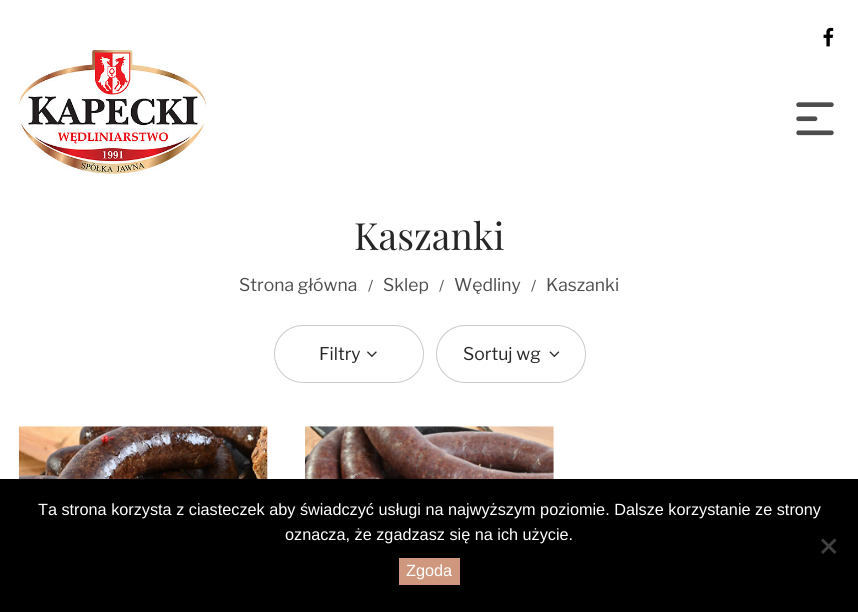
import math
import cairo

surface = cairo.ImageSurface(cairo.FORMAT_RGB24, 858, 612)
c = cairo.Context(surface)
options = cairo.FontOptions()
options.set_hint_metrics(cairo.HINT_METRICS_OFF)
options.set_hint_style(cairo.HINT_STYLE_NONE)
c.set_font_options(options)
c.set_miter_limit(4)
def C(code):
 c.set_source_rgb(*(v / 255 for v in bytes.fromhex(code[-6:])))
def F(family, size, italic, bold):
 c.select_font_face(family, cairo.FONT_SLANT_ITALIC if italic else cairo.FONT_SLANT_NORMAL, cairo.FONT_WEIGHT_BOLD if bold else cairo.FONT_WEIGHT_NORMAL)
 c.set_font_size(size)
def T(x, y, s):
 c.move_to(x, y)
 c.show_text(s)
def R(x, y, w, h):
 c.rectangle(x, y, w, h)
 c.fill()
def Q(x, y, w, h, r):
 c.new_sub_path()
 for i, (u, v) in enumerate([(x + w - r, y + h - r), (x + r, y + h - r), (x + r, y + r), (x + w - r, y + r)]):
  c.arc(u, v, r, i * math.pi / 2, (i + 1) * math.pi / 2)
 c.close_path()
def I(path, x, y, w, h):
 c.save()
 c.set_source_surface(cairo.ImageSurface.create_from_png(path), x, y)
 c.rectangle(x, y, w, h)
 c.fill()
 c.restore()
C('ffffff')
c.paint()
I('1.png',823,27,11,20)
I('2.png',19,50,188,124)
I('3.png',796,102,38,34)
F('Playfair Display',37.5,0,0)
C('262626')
T(354,250,'Kaszanki')
F('Libre Franklin',17.5,0,0)
C('4d4d4d')
T(239,291,'Strona główna')
F('Libre Franklin',15,0,0)
T(368,291,'/')
F('Libre Franklin',17.5,0,0)
T(383,291,'Sklep')
F('Libre Franklin',15,0,0)
T(439,291,'/')
F('Libre Franklin',17.5,0,0)
T(454,291,'Wędliny')
F('Libre Franklin',15,0,0)
T(531,291,'/')
F('Libre Franklin',17.5,0,0)
T(546,291,'Kaszanki')
Q(274.5,325.5,149,57,28.5)
C('cacaca')
c.set_line_width(1)
c.stroke()
C('262626')
T(319,360,'Filtry')
I('4.png',367,351,10,6)
Q(436.5,325.5,149,57,28.5)
C('cacaca')
c.stroke()
C('262626')
T(463,360,'Sortuj wg')
I('5.png',549,351,11,6)
I('6.png',18,426,250,53)
I('7.png',305,426,249,53)
C('000000')
R(0,479,858,133)
F('Liberation Sans',16.25,0,0)
C('ffffff')
T(38,515,'Ta strona korzysta z ciasteczek aby świadczyć usługi na najwyższym poziomie. Dalsze korzystanie ze strony')
T(285,540,'oznacza, że zgadzasz się na ich użycie.')
C('404040')
c.new_path()
c.move_to(834.5,538.5)
c.line_to(836.5,540.5)
c.line_to(823,554)
c.line_to(821,552)
c.close_path()
c.fill()
c.new_path()
c.move_to(821,540.5)
c.line_to(823,538.5)
c.line_to(836.5,552)
c.line_to(834.5,554)
c.close_path()
c.fill()
C('cf987e')
R(399,558,61,27)
C('ffffff')
T(406,576,'Zgoda')
surface.write_to_png('o.png')
